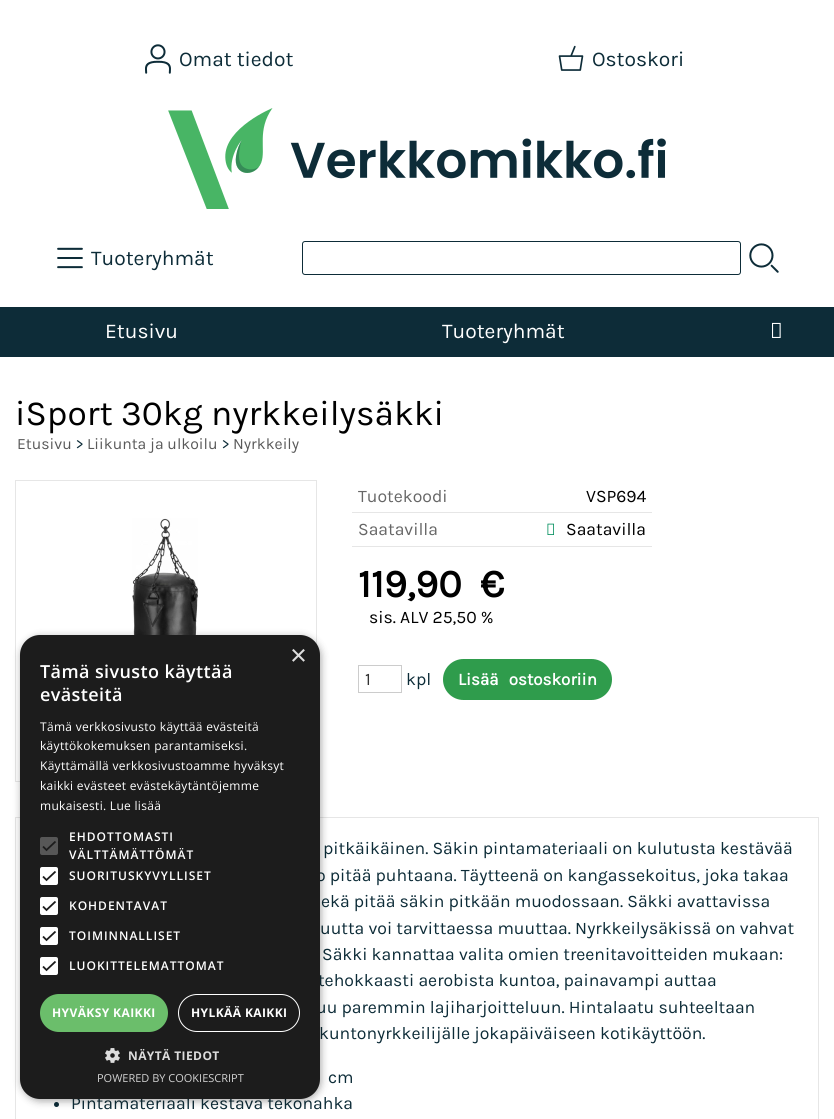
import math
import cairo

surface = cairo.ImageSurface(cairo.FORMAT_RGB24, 834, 1119)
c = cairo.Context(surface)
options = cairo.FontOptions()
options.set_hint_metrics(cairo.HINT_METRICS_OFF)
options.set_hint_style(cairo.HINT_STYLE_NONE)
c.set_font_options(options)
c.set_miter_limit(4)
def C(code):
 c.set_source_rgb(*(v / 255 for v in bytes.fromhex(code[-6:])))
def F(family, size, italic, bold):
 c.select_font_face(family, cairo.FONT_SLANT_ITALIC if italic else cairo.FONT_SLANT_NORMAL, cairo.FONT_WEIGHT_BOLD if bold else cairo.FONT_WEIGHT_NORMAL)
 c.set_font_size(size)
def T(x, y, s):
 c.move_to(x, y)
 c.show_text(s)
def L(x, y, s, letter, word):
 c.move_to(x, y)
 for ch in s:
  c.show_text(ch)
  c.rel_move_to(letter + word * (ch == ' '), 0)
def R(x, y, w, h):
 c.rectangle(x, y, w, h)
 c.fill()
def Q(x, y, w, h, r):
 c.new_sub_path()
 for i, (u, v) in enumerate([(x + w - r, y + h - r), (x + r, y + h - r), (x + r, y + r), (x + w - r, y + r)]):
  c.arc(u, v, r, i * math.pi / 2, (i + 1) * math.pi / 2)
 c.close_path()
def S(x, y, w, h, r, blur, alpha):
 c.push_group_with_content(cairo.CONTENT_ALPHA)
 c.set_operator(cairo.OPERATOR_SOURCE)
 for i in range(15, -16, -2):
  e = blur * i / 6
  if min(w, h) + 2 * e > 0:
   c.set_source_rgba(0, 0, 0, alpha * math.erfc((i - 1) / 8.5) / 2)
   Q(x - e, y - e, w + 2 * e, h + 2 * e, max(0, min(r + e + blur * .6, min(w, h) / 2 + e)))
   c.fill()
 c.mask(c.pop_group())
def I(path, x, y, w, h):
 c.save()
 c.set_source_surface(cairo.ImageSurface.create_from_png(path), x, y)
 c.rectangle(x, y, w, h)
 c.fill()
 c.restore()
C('ffffff')
c.paint()
I('1.png',145,44,26,30)
F('Karla',21,0,0)
C('0d2c38')
T(179,66,'Omat tiedot')
I('2.png',558,45,26,26)
T(592,66,'Ostoskori')
I('3.png',168,108,498,101)
I('4.png',57,247,26,22)
T(91,265,'Tuoteryhmät')
Q(302.5,241.5,438,33,2.5)
c.set_line_width(1)
c.stroke()
I('5.png',749,243,30,30)
R(0,307,834,50)
C('ffffff')
T(105,338,'Etusivu')
T(442,338,'Tuoteryhmät')
I('6.png',772,322,9,16)
F('Karla',35.25,0,0)
C('000000')
T(15,425,'iSport 30kg nyrkkeilysäkki')
F('Karla',15.75,0,0)
C('595959')
T(17,449,'Etusivu')
C('0d2c38')
T(76,449,'>')
C('595959')
T(87,449,'Liikunta ja ulkoilu')
C('0d2c38')
T(222,449,'>')
C('595959')
T(233,449,'Nyrkkeily')
c.rectangle(15.5,480.5,301,301)
C('e6e6e6')
c.stroke()
I('7.png',132,518,66,117)
R(352,512,300,1)
F('Karla',17.6,0,0)
C('666666')
T(358,502,'Tuotekoodi')
C('000000')
T(586,502,'VSP694')
C('e6e6e6')
R(352,546,300,1)
C('666666')
T(358,535,'Saatavilla')
I('8.png',547,523,7,12)
C('000000')
T(566,535,'Saatavilla')
F('Karla',39.5,0,1)
T(358,597,'119,90')
T(480,597,'€')
F('Karla',17.6,0,0)
T(369,623,'sis. ALV 25,50 %')
c.rectangle(358.5,665.5,43,27)
C('cccccc')
c.stroke()
C('333333')
T(365,685,'1')
C('0d2c38')
T(406,685,'kpl')
C('2f9c4c')
Q(443,659,169,41,20.5)
c.fill()
F('Karla',17,0,1)
C('ffffff')
L(458,685,'Lisää ostoskoriin',0,6)
c.rectangle(15.5,817.5,803,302)
C('e6e6e6')
c.stroke()
F('Karla',17.6,0,0)
C('0d2c38')
T(323,854,'pitkäikäinen. Säkin pintamateriaali on kulutusta kestävää')
T(316,881,'o pitää puhtaana. Täytteenä on kangassekoitus, joka takaa')
T(321,907,'ekä pitää säkin pitkään muodossaan. Säkki avattavissa')
T(320,934,'uutta voi tarvittaessa muuttaa. Nyrkkeilysäkissä on vahvat')
T(322,960,'Säkki kannattaa valita omien treenitavoitteiden mukaan:')
T(318,986,'tehokkaasti aerobista kuntoa, painavampi auttaa')
T(316,1013,'uu paremmin lajiharjoitteluun. Hintalaatu suhteeltaan')
T(319,1039,'kuntonyrkkeilijälle jokapäiväiseen kotikäyttöön.')
T(328,1083,'cm')
c.new_path()
c.arc(56.5,1104.5,2.5,0,2 * math.pi)
c.fill()
T(71,1109,'Pintamateriaali kestävä tekonahka')
C('000000')
S(21,637,300,464,20,4,.35)
C('1c1c1c')
Q(20,635,300,464,20)
c.fill()
F('Liberation Sans',29,0,0)
C('dddddd')
T(290,665,'×')
F('Open Sans SemiBold',18,0,0)
C('ffffff')
L(40,678,'Tämä sivusto käyttää',.4,0)
L(40,701,'evästeitä',.4,0)
F('Open Sans',12,0,0)
L(40,731,'Tämä verkkosivusto käyttää evästeitä',.3,0)
L(40,750,'käyttökokemuksen parantamiseksi.',.3,0)
L(40,770,'Käyttämällä verkkosivustoamme hyväksyt',.3,0)
L(40,790,'kaikki evästeet evästekäytäntöjemme',.3,0)
L(40,810,'mukaisesti. Lue lisää',.3,0)
C('575757')
Q(40,837,18,18,2)
c.fill()
c.new_path()
c.move_to(43,846.5)
c.line_to(46.5,850)
c.line_to(55.5,841.5)
C('1c1c1c')
c.set_line_width(1.8)
c.stroke()
F('Open Sans SemiBold',12,0,0)
C('ffffff')
L(69,841,'EHDOTTOMASTI',1,0)
L(69,859,'VÄLTTÄMÄTTÖMÄT',1,0)
Q(41,868,16,16,1)
c.fill_preserve()
c.set_line_width(2)
c.stroke()
c.new_path()
c.move_to(43,876.5)
c.line_to(46.5,880)
c.line_to(55.5,871.5)
C('1c1c1c')
c.set_line_width(1.8)
c.stroke()
C('ffffff')
L(69,880,'SUORITUSKYVYLLISET',1,0)
Q(41,898,16,16,1)
c.fill_preserve()
c.set_line_width(2)
c.stroke()
c.new_path()
c.move_to(43,906.5)
c.line_to(46.5,910)
c.line_to(55.5,901.5)
C('1c1c1c')
c.set_line_width(1.8)
c.stroke()
C('ffffff')
L(69,910,'KOHDENTAVAT',1,0)
Q(41,928,16,16,1)
c.fill_preserve()
c.set_line_width(2)
c.stroke()
c.new_path()
c.move_to(43,936.5)
c.line_to(46.5,940)
c.line_to(55.5,931.5)
C('1c1c1c')
c.set_line_width(1.8)
c.stroke()
C('ffffff')
L(69,940,'TOIMINNALLISET',1,0)
Q(41,958,16,16,1)
c.fill_preserve()
c.set_line_width(2)
c.stroke()
c.new_path()
c.move_to(43,966.5)
c.line_to(46.5,970)
c.line_to(55.5,961.5)
C('1c1c1c')
c.set_line_width(1.8)
c.stroke()
C('ffffff')
L(69,970,'LUOKITTELEMATTOMAT',1,0)
C('6bbe6b')
Q(40,994,128,38,19)
c.fill()
F('Open Sans',12,0,1)
C('ffffff')
L(52,1017,'HYVÄKSY KAIKKI',.4,0)
Q(178.5,994.5,121,37,18.5)
c.set_line_width(1)
c.stroke()
L(191,1017,'HYLKÄÄ KAIKKI',.4,0)
I('9.png',105,1048,15,15)
C('dddddd')
L(128,1060,'NÄYTÄ TIEDOT',.4,0)
F('Open Sans',11,0,0)
C('d2d2d2')
T(97,1082,'POWERED BY COOKIESCRIPT')
surface.write_to_png('o.png')
